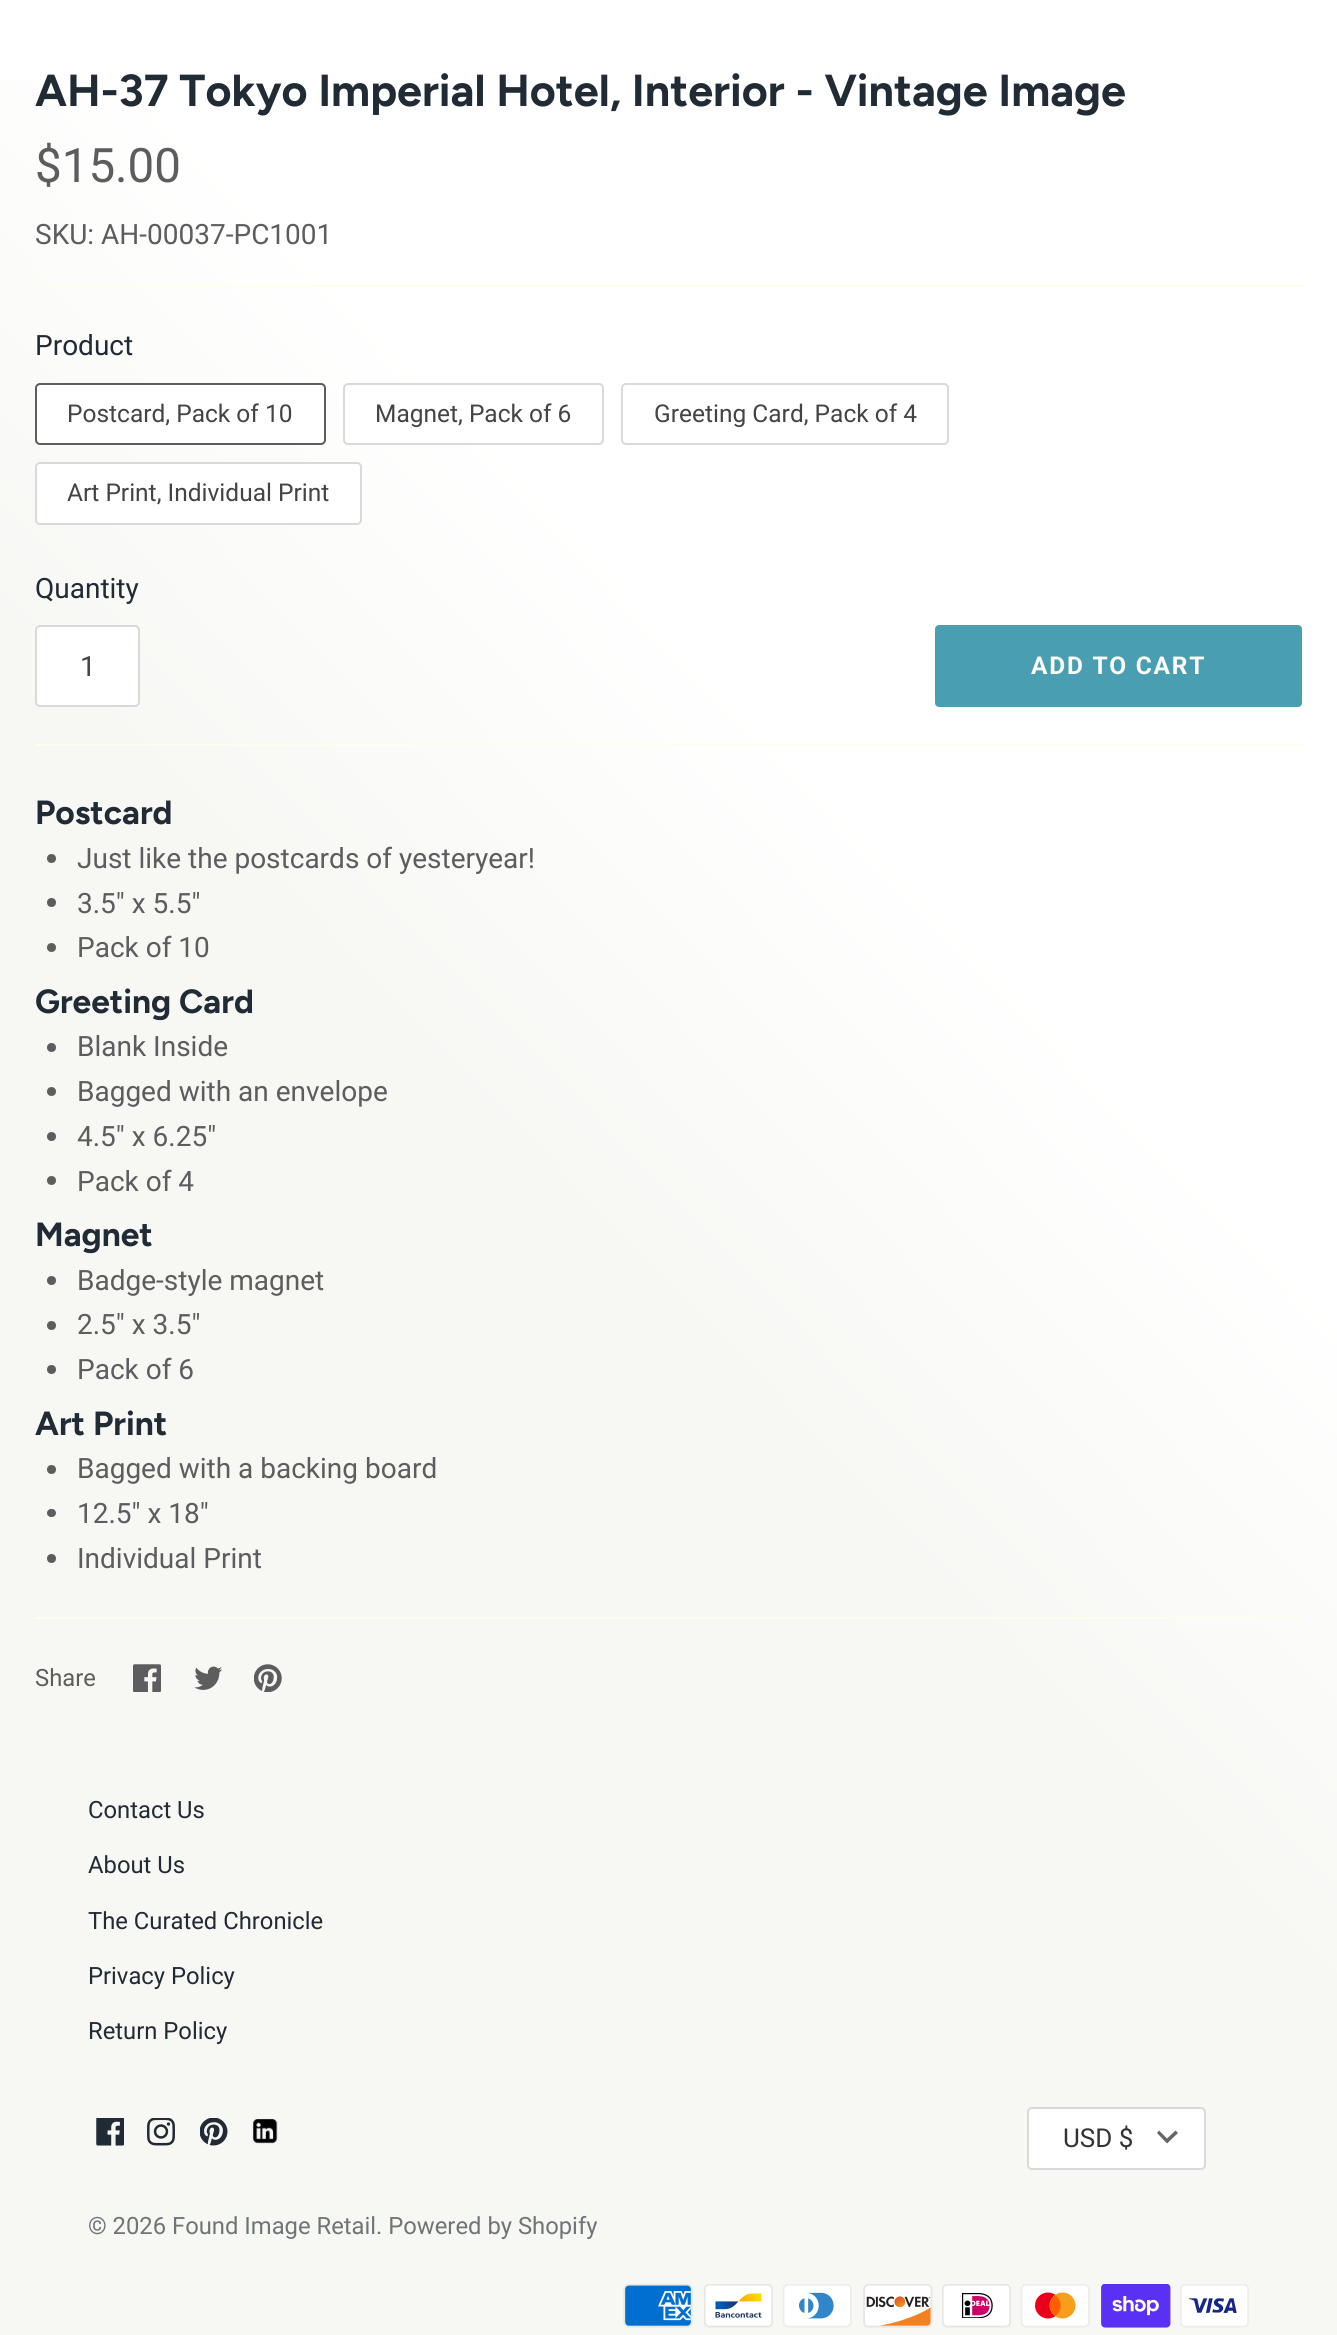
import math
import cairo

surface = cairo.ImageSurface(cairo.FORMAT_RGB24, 1337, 2335)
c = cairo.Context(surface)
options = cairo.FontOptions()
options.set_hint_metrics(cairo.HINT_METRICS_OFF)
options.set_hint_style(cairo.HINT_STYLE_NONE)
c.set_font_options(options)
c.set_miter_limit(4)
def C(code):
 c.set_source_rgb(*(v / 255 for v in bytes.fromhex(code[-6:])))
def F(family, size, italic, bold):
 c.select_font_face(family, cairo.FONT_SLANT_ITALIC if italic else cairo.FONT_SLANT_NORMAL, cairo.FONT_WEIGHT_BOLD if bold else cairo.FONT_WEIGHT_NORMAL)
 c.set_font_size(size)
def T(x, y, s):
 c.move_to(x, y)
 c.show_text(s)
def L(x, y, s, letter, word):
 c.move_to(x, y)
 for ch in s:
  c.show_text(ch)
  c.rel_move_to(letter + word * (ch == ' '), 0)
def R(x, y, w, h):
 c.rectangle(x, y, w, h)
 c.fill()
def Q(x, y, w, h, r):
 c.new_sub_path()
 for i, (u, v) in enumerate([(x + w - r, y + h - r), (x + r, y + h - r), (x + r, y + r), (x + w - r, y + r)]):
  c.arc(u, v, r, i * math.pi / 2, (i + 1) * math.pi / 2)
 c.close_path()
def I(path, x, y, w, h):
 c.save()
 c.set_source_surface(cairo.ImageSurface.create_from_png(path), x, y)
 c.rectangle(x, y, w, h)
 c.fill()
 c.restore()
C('ffffff')
c.paint()
gradient = cairo.LinearGradient(-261,2066,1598,270)
gradient.add_color_stop_rgba(.46,0.969,0.969,0.957,1)
gradient.add_color_stop_rgba(.65,1,1,1,1)
c.set_source(gradient)
R(0,79,1337,2256)
F('Figtree',44.8,0,1)
C('212b36')
T(35,106,'AH-37 Tokyo Imperial Hotel, Interior - Vintage Image')
F('Roboto',47.5,0,0)
C('5d5d60')
T(35,182,'$15.00')
F('Roboto',28,0,0)
T(35,244,'SKU: AH-00037-PC1001')
C('fffeee')
R(35,285,1267,2)
C('212b36')
T(35,355,'Product')
C('ffffff')
Q(36,384,289,60,4)
c.fill_preserve()
C('5d5d60')
c.stroke()
F('Roboto',24.5,0,0)
C('444444')
T(67,422,'Postcard, Pack of 10')
C('ffffff')
Q(344,384,259,60,4)
c.fill_preserve()
C('d9d9d9')
c.stroke()
C('444444')
T(375,422,'Magnet, Pack of 6')
Q(622,384,326,60,4)
C('d9d9d9')
c.stroke()
C('444444')
T(654,422,'Greeting Card, Pack of 4')
C('ffffff')
Q(35,462,327,63,5)
c.fill()
Q(36,463,325,61,4)
c.set_source_rgba(0,0,0,0.15)
c.stroke()
C('444444')
T(67,501,'Art Print, Individual Print')
F('Roboto',28,0,0)
C('212b36')
T(35,598,'Quantity')
C('ffffff')
Q(35,625,105,82,5)
c.fill()
Q(36,626,103,80,4)
c.set_source_rgba(0,0,0,0.15)
c.stroke()
C('444444')
T(80,676,'1')
C('499fb1')
Q(936,626,365,80,3)
c.fill_preserve()
c.stroke()
F('Roboto',24.5,0,1)
C('fdfdf9')
L(1031,674,'ADD TO CART',1.75,0)
C('fffeee')
R(35,744,1267,2)
F('Figtree',33.5,0,1)
C('212b36')
T(35,824,'Postcard')
C('5d5d60')
c.new_path()
c.arc(51.5,858.5,4.5,0,2 * math.pi)
c.fill()
F('Roboto',28,0,0)
T(77,868,'Just like the postcards of yesteryear!')
c.new_path()
c.arc(51.5,902.5,4.5,0,2 * math.pi)
c.fill()
T(77,913,'3.5" x 5.5"')
c.new_path()
c.arc(51.5,947.5,4.5,0,2 * math.pi)
c.fill()
T(77,957,'Pack of 10')
F('Figtree',33.5,0,1)
C('212b36')
T(35,1013,'Greeting Card')
C('5d5d60')
c.new_path()
c.arc(51.5,1047.5,4.5,0,2 * math.pi)
c.fill()
F('Roboto',28,0,0)
T(77,1056,'Blank Inside')
c.new_path()
c.arc(51.5,1091.5,4.5,0,2 * math.pi)
c.fill()
T(77,1101,'Bagged with an envelope')
c.new_path()
c.arc(51.5,1136.5,4.5,0,2 * math.pi)
c.fill()
T(77,1146,'4.5" x 6.25"')
c.new_path()
c.arc(51.5,1180.5,4.5,0,2 * math.pi)
c.fill()
T(77,1191,'Pack of 4')
F('Figtree',33.5,0,1)
C('212b36')
T(35,1246,'Magnet')
C('5d5d60')
c.new_path()
c.arc(51.5,1280.5,4.5,0,2 * math.pi)
c.fill()
F('Roboto',28,0,0)
T(77,1290,'Badge-style magnet')
c.new_path()
c.arc(51.5,1325.5,4.5,0,2 * math.pi)
c.fill()
T(77,1334,'2.5" x 3.5"')
c.new_path()
c.arc(51.5,1369.5,4.5,0,2 * math.pi)
c.fill()
T(77,1379,'Pack of 6')
F('Figtree',33.5,0,1)
C('212b36')
T(35,1435,'Art Print')
C('5d5d60')
c.new_path()
c.arc(51.5,1469.5,4.5,0,2 * math.pi)
c.fill()
F('Roboto',28,0,0)
T(77,1478,'Bagged with a backing board')
Q(47,1509,9,8,4)
c.fill()
T(77,1523,'12.5" x 18"')
c.new_path()
c.arc(51.5,1558.5,4.5,0,2 * math.pi)
c.fill()
T(77,1568,'Individual Print')
C('fffeee')
R(35,1617,1267,2)
F('Roboto',23.8,0,0)
C('5d5d60')
T(35,1686,'Share')
I('1.png',133,1664,28,28)
I('2.png',194,1666,28,24)
I('3.png',254,1664,28,28)
C('212b36')
T(88,1818,'Contact Us')
T(88,1873,'About Us')
T(88,1929,'The Curated Chronicle')
T(88,1984,'Privacy Policy')
T(88,2039,'Return Policy')
I('4.png',96,2118,28,28)
I('5.png',147,2118,28,28)
I('6.png',200,2118,28,28)
I('7.png',251,2117,28,28)
C('ffffff')
Q(1027,2107,179,63,5)
c.fill()
Q(1028,2108,177,61,4)
c.set_source_rgba(0,0,0,0.15)
c.stroke()
F('Roboto',26,0,0)
C('333333')
T(1063,2147,'USD $')
C('666666')
c.new_path()
c.move_to(1159,2130.5)
c.line_to(1167,2138.5)
c.line_to(1175.5,2130.5)
c.line_to(1178,2133)
c.line_to(1167,2143.5)
c.line_to(1157,2133)
c.close_path()
c.fill()
F('Roboto',23.8,0,0)
C('6f7576')
T(88,2234,'© 2026 Found Image Retail. Powered by Shopify')
I('8.png',623,2284,70,44)
I('9.png',704,2284,69,44)
I('10.png',782,2284,70,44)
I('11.png',863,2284,70,44)
I('12.png',942,2284,69,44)
I('13.png',1020,2284,70,44)
I('14.png',1101,2284,70,44)
I('15.png',1180,2284,69,44)
surface.write_to_png('o.png')
